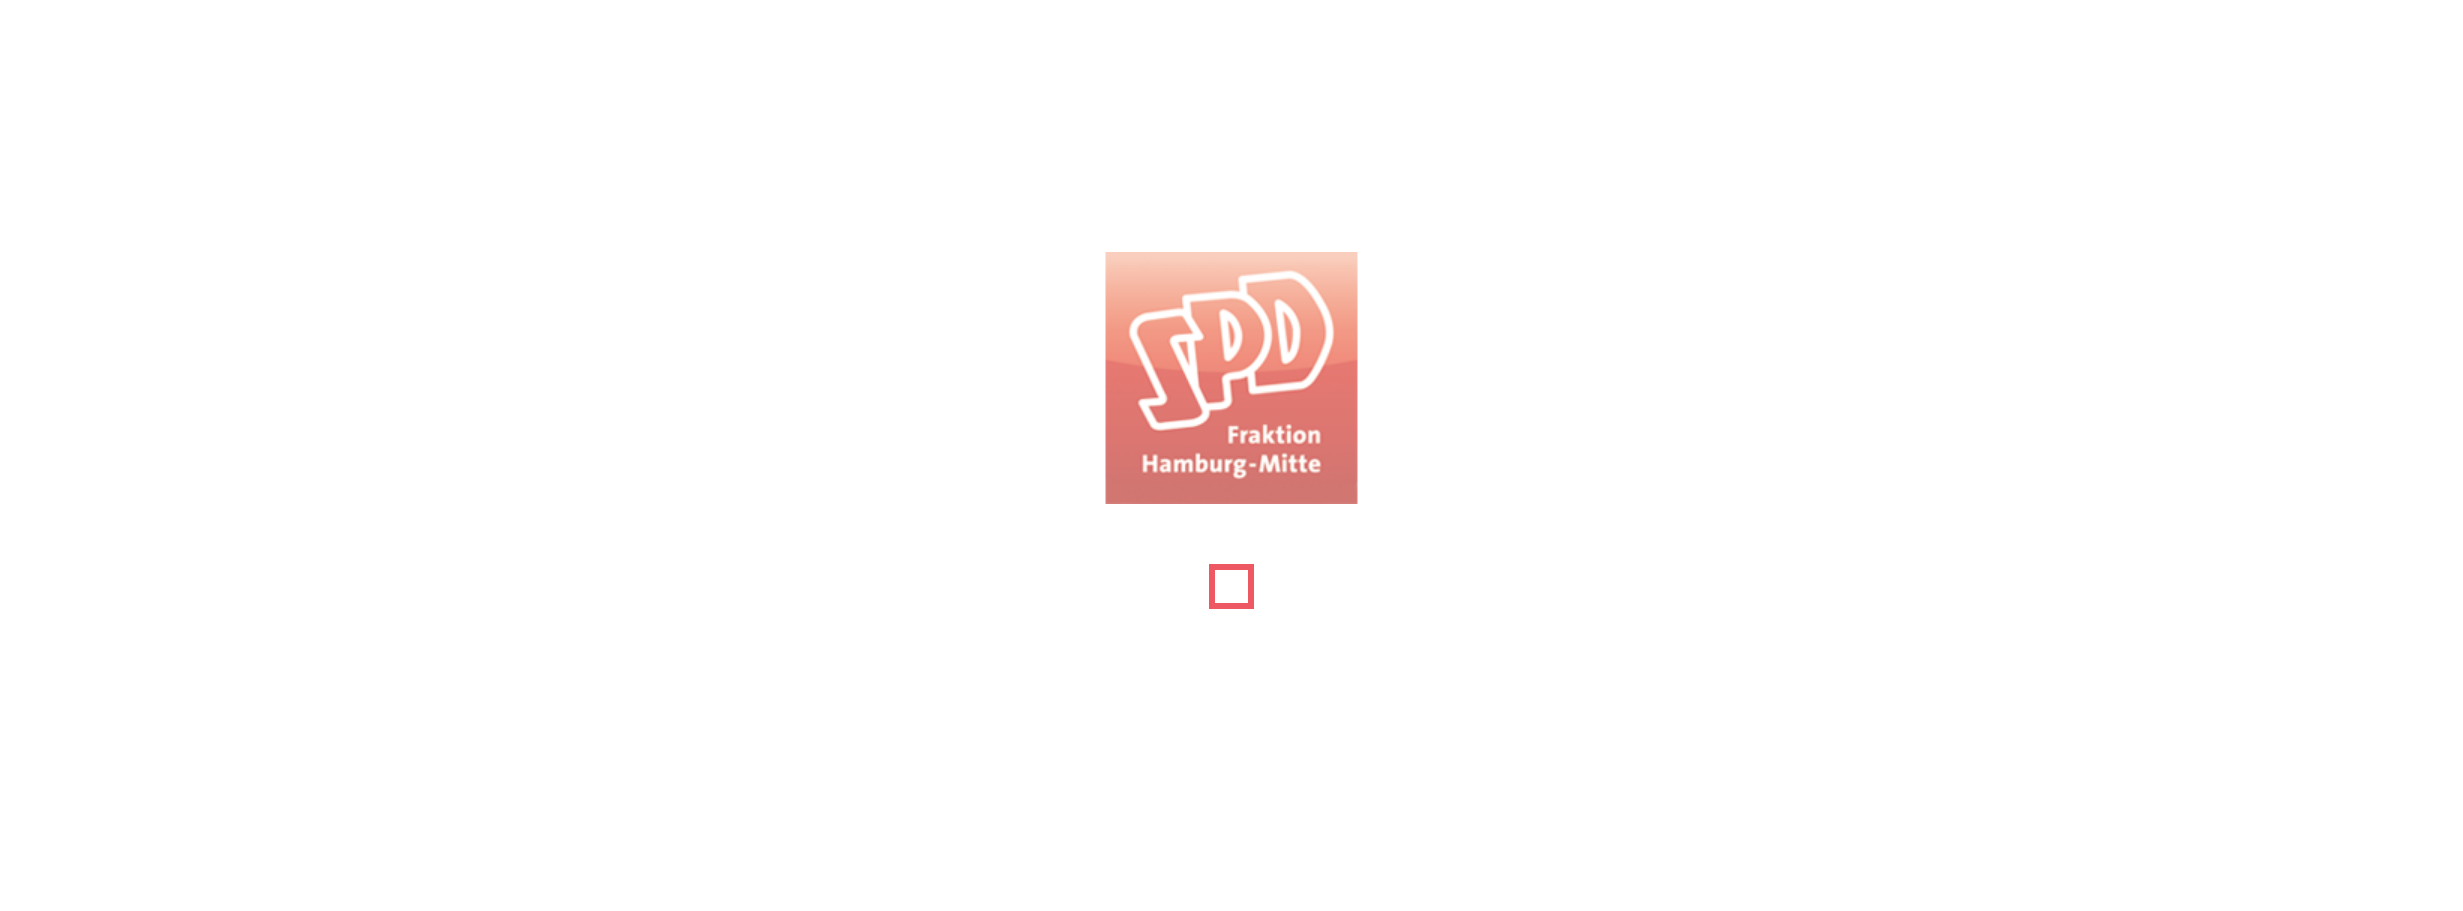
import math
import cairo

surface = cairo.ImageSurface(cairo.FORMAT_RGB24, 2463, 911)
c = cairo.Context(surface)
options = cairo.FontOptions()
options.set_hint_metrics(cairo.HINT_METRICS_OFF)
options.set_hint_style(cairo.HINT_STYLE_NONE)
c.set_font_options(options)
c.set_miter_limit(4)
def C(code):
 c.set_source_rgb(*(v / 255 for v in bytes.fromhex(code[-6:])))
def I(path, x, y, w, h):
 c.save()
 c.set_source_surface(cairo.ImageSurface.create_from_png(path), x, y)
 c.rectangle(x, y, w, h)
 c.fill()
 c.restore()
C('ffffff')
c.paint()
I('1.png',1105,252,253,252)
c.rectangle(1212,567,39,39)
C('ed5862')
c.set_line_width(6)
c.stroke()
surface.write_to_png('o.png')
